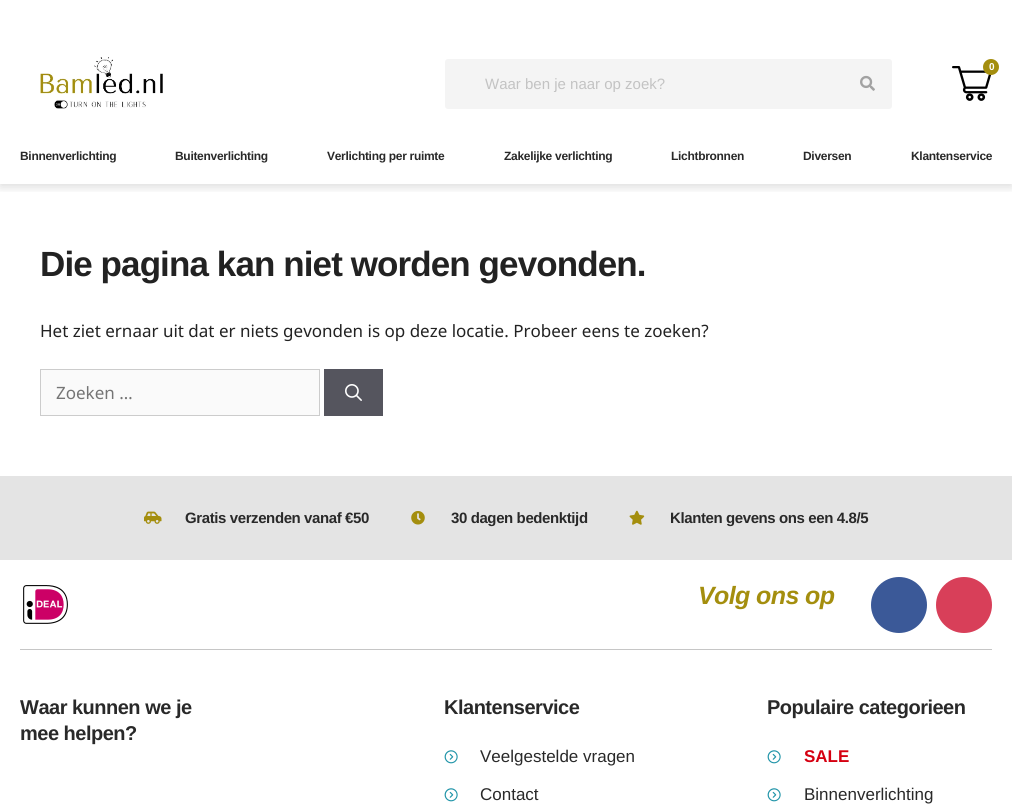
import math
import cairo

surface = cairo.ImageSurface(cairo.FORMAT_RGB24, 1012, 804)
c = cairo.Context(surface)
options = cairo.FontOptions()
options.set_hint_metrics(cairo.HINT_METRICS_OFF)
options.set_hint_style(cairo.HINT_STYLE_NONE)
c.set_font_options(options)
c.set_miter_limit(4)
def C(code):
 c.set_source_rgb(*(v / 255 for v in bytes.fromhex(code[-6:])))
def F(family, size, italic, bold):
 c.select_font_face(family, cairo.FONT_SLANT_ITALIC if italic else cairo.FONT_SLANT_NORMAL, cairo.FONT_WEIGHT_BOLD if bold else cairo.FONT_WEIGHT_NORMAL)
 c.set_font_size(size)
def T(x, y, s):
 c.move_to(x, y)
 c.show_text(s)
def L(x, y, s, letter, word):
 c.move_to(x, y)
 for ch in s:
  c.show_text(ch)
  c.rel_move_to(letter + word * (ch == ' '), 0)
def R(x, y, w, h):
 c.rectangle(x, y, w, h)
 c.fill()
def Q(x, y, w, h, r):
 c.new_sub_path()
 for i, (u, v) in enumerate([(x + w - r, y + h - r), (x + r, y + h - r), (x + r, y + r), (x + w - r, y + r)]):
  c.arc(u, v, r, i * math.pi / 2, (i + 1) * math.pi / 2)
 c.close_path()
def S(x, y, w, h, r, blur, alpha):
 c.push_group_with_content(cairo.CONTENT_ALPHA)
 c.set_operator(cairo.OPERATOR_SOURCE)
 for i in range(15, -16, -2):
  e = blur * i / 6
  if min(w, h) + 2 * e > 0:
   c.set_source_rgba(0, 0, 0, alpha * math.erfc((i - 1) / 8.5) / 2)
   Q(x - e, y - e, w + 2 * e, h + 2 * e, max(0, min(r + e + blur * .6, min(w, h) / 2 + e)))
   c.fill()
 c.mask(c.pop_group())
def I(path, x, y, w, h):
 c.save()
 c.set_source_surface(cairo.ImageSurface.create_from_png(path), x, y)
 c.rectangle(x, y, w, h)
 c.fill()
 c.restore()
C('ffffff')
c.paint()
c.save()
c.rectangle(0,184,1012,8)
c.clip()
C('000000')
S(0,3,1012,184,0,5,.14)
c.restore()
I('1.png',40,57,123,52)
I('2.png',952,66,40,35)
C('a48e0e')
c.arc(991,67,8,0,2 * math.pi)
c.fill()
F('Liberation Sans',10,0,1)
C('ffffff')
L(989,70,'0',-.6,0)
C('f4f4f4')
Q(445,59,447,50,3)
c.fill()
c.save()
c.rectangle(485,75,303,17)
c.clip()
F('Liberation Sans',15,0,0)
C('c3c3c3')
T(485,89,'Waar ben je naar op zoek?')
c.restore()
I('3.png',860,75,15,16)
F('Liberation Sans',12,0,1)
C('292929')
L(20,160,'Binnenverlichting',-.3,0)
L(175,160,'Buitenverlichting',-.3,0)
L(327,160,'Verlichting per ruimte',-.3,0)
L(504,160,'Zakelijke verlichting',-.3,0)
L(671,160,'Lichtbronnen',-.3,0)
L(803,160,'Diversen',-.3,0)
L(911,160,'Klantenservice',-.3,0)
F('Liberation Sans',35,0,1)
C('222222')
L(40,276,'Die pagina kan niet worden gevonden.',-.9,0)
F('Noto Sans',17,0,0)
T(40,337,'Het ziet ernaar uit dat er niets gevonden is op deze locatie. Probeer eens te zoeken?')
C('fafafa')
c.rectangle(40.5,369.5,279,46)
c.fill_preserve()
C('cccccc')
c.set_line_width(1)
c.stroke()
C('757575')
T(56,399,'Zoeken …')
C('55555e')
R(324,369,59,47)
I('4.png',345,384,17,17)
C('e4e4e4')
R(0,476,1012,84)
I('5.png',144,511,18,13)
F('Liberation Sans',15,0,1)
C('292929')
L(185,523,'Gratis verzenden vanaf €50',-.4,0)
I('6.png',411,511,14,14)
L(451,523,'30 dagen bedenktijd',-.4,0)
I('7.png',629,510,16,15)
L(670,523,'Klanten gevens ons een 4.8/5',-.4,0)
C('c6c6c6')
R(20,649,972,1)
I('8.png',23,585,45,39)
F('Liberation Sans',25,1,1)
C('a48e0e')
L(698,604,'Volg ons op',-.6,0)
C('3b5998')
c.new_path()
c.arc(899,605,28,0,2 * math.pi)
c.fill()
C('d83f59')
c.arc(964,605,28,0,2 * math.pi)
c.fill()
F('Liberation Sans',20,0,1)
C('292929')
L(20,714,'Waar kunnen we je',-.5,0)
L(20,740,'mee helpen?',-.5,0)
L(444,714,'Klantenservice',-.5,0)
I('9.png',444,750,14,14)
F('Liberation Sans',17,0,0)
T(480,762,'Veelgestelde vragen')
I('9.png',444,788,14,14)
T(480,800,'Contact')
F('Liberation Sans',20,0,1)
L(767,714,'Populaire categorieen',-.5,0)
I('9.png',767,750,14,14)
F('Liberation Sans',17,0,1)
C('d50011')
T(804,762,'SALE')
I('9.png',767,788,14,14)
F('Liberation Sans',17,0,0)
C('292929')
T(804,800,'Binnenverlichting')
surface.write_to_png('o.png')
